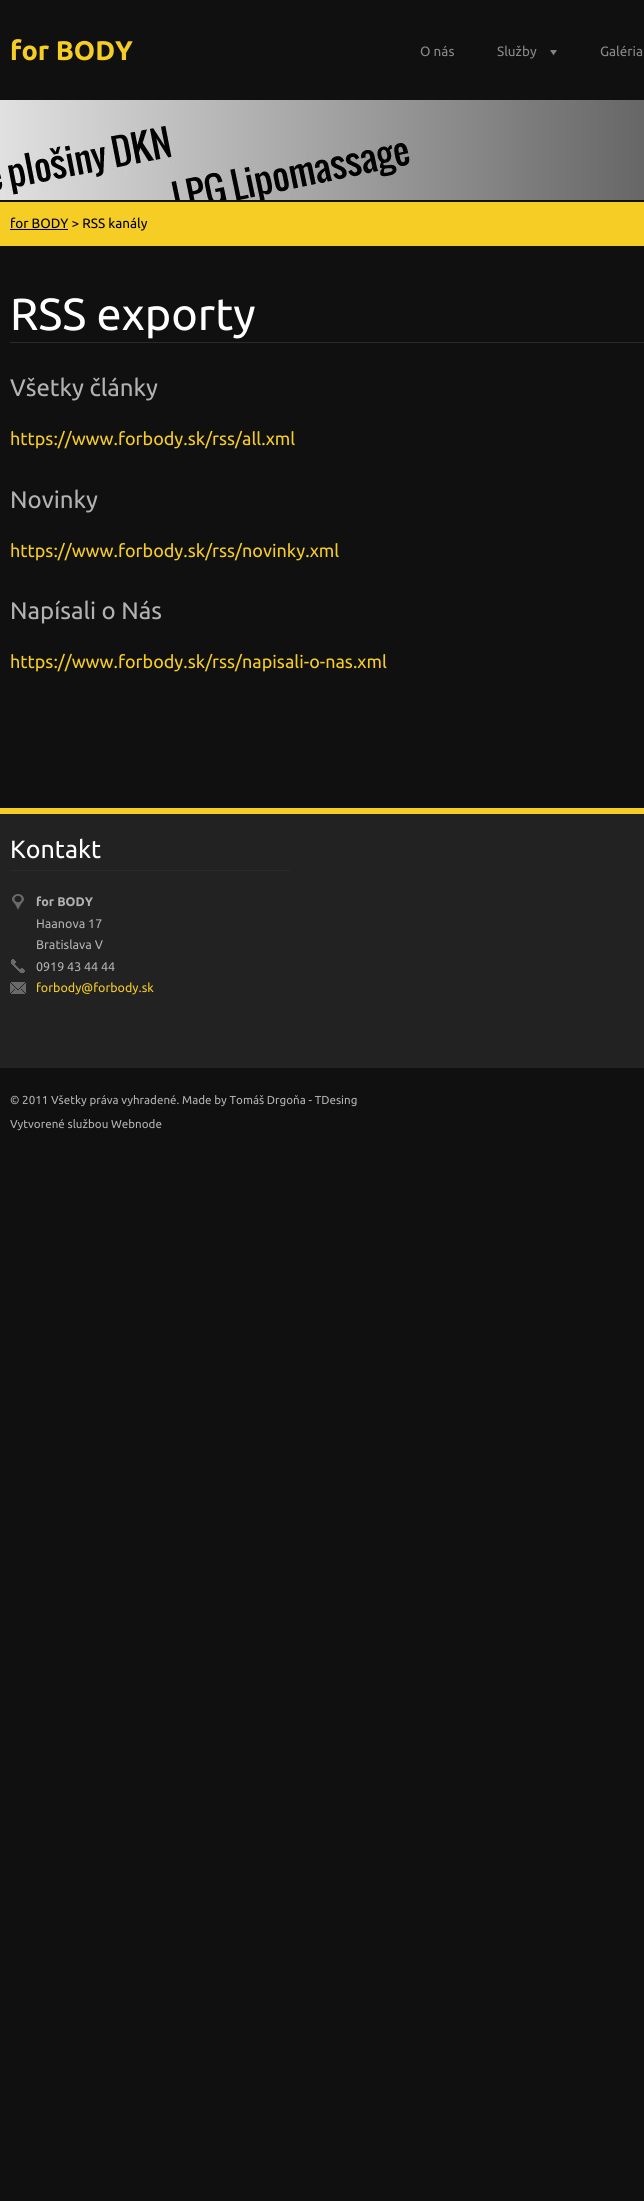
import math
import cairo

surface = cairo.ImageSurface(cairo.FORMAT_RGB24, 644, 2201)
c = cairo.Context(surface)
options = cairo.FontOptions()
options.set_hint_metrics(cairo.HINT_METRICS_OFF)
options.set_hint_style(cairo.HINT_STYLE_NONE)
c.set_font_options(options)
c.set_miter_limit(4)
def C(code):
 c.set_source_rgb(*(v / 255 for v in bytes.fromhex(code[-6:])))
def F(family, size, italic, bold):
 c.select_font_face(family, cairo.FONT_SLANT_ITALIC if italic else cairo.FONT_SLANT_NORMAL, cairo.FONT_WEIGHT_BOLD if bold else cairo.FONT_WEIGHT_NORMAL)
 c.set_font_size(size)
def T(x, y, s):
 c.move_to(x, y)
 c.show_text(s)
def R(x, y, w, h):
 c.rectangle(x, y, w, h)
 c.fill()
def I(path, x, y, w, h):
 c.save()
 c.set_source_surface(cairo.ImageSurface.create_from_png(path), x, y)
 c.rectangle(x, y, w, h)
 c.fill()
 c.restore()
C('101010')
c.paint()
F('Ubuntu',27,0,1)
C('f5cd25')
T(10,60,'for BODY')
F('Ubuntu',13.5,0,0)
C('888888')
T(420,56,'O nás')
I('1.png',550,50,7,6)
T(497,56,'Služby')
T(600,56,'Galéria')
I('2.png',0,100,644,100)
C('f5cd25')
R(0,202,644,44)
C('000000')
R(10,229,58,1)
T(10,228,'for BODY > RSS kanály')
C('2a2a2a')
R(10,342,634,1)
F('Ubuntu',45,0,0)
C('ffffff')
T(10,330,'RSS exporty')
F('Ubuntu',24,0,0)
C('b2b2b2')
T(10,396,'Všetky články')
F('Ubuntu',18,0,0)
C('f5cd25')
T(10,445,'https://www.forbody.sk/rss/all.xml')
F('Ubuntu',24,0,0)
C('b2b2b2')
T(10,508,'Novinky')
F('Ubuntu',18,0,0)
C('f5cd25')
T(10,557,'https://www.forbody.sk/rss/novinky.xml')
F('Ubuntu',24,0,0)
C('b2b2b2')
T(10,619,'Napísali o Nás')
F('Ubuntu',18,0,0)
C('f5cd25')
T(10,668,'https://www.forbody.sk/rss/napisali-o-nas.xml')
C('222222')
R(0,814,644,254)
C('f5cd25')
R(0,808,644,6)
C('2a2a2a')
R(10,870,280,1)
F('Ubuntu',25,0,0)
C('ffffff')
T(10,858,'Kontakt')
I('3.png',12,894,12,16)
F('Ubuntu',12.5,0,1)
C('b2b2b2')
T(36,906,'for BODY')
F('Ubuntu',12.5,0,0)
T(36,928,'Haanova 17')
T(36,949,'Bratislava V')
I('4.png',11,959,14,14)
T(36,971,'0919 43 44 44')
I('5.png',10,982,16,12)
C('f5cd25')
T(36,992,'forbody@forbody.sk')
F('Ubuntu',11.6,0,0)
C('b2b2b2')
T(10,1104,'© 2011 Všetky práva vyhradené. Made by Tomáš Drgoňa - TDesing')
T(10,1128,'Vytvorené službou Webnode')
surface.write_to_png('o.png')
